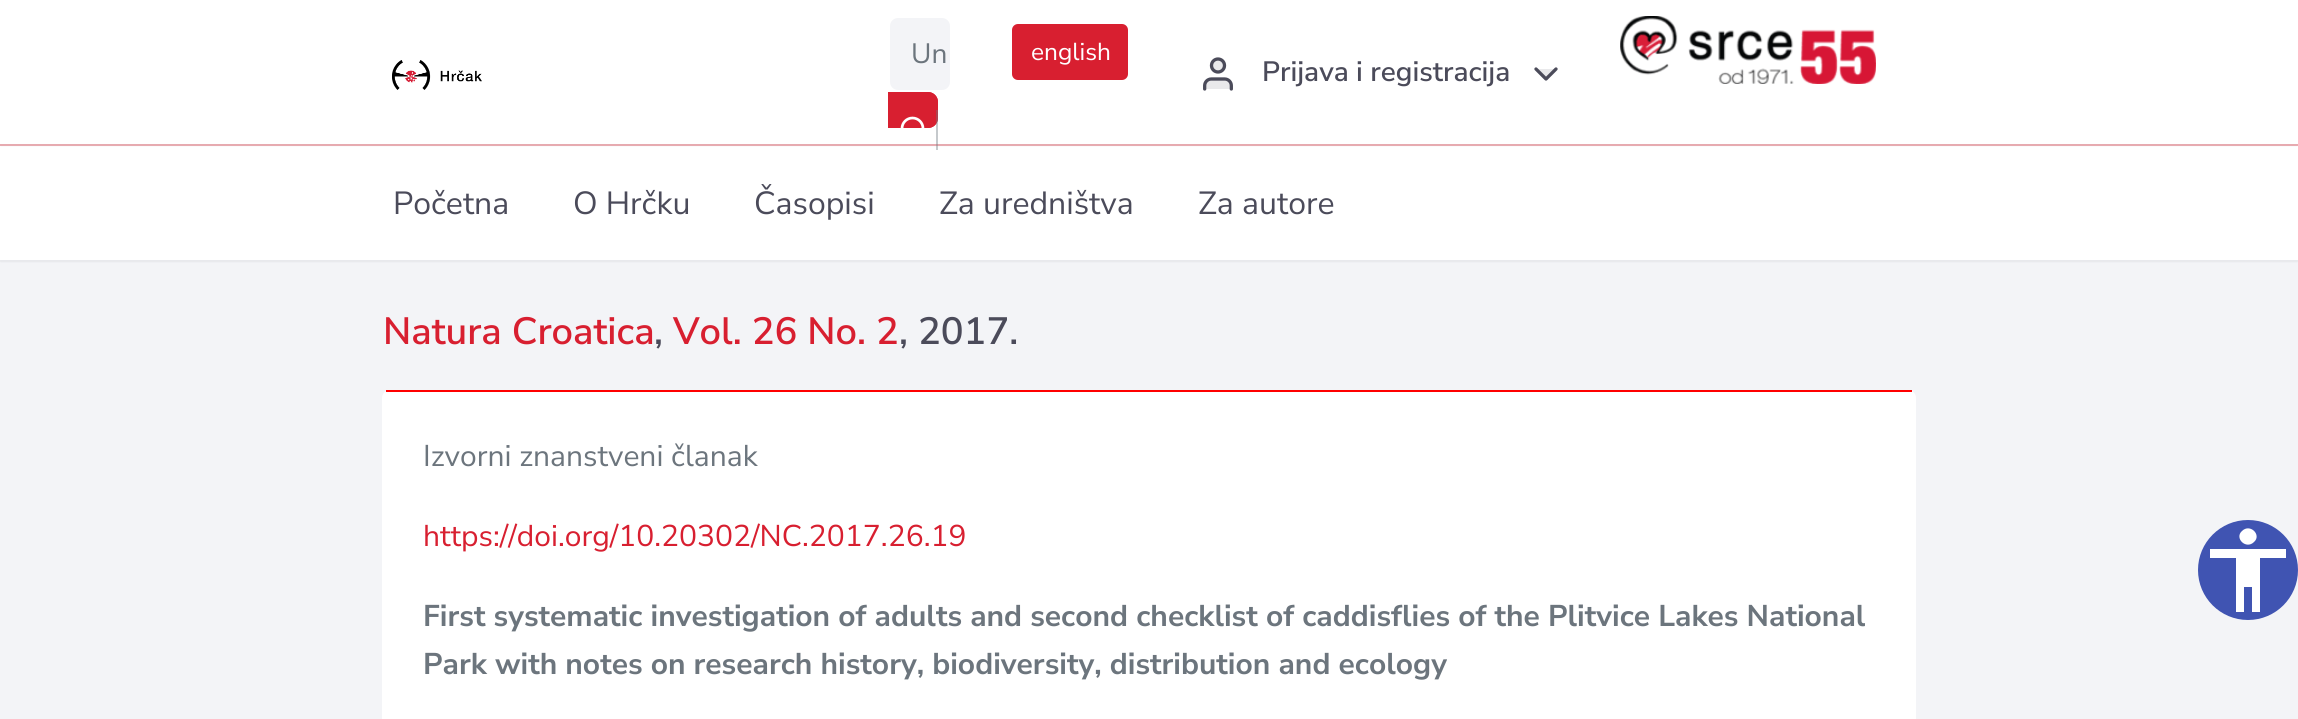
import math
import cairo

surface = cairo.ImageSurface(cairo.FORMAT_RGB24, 2298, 719)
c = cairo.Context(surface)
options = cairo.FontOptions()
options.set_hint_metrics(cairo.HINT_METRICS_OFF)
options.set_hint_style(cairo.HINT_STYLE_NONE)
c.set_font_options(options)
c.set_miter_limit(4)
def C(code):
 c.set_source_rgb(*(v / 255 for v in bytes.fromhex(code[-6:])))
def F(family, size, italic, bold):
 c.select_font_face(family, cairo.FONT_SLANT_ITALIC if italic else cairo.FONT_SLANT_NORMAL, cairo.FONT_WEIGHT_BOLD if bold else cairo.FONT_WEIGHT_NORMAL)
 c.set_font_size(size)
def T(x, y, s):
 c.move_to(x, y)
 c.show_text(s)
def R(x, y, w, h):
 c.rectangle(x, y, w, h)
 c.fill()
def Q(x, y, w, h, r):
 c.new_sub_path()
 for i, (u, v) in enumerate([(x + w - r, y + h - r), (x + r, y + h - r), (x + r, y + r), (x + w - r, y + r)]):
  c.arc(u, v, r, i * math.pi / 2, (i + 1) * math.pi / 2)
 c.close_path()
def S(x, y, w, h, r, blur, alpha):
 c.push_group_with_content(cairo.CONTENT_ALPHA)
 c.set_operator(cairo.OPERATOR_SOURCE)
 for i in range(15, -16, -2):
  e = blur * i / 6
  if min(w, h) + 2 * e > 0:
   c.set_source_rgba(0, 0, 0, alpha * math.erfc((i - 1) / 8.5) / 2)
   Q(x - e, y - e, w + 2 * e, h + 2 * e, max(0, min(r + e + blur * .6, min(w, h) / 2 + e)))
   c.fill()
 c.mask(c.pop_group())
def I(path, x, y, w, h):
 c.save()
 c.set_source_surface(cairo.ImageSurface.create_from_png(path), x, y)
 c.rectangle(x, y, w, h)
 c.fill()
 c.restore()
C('f3f4f7')
c.paint()
C('4b4b5a')
S(0,146,2298,116,0,.5,.07)
C('ffffff')
R(0,146,2298,114)
C('f1b1b6')
R(0,144,2298,2)
C('4b4b5a')
S(0,2,2298,144,0,.5,.07)
C('ffffff')
R(0,0,2298,144)
I('1.png',392,60,90,30)
C('f3f4f7')
Q(890,18,60,72,8)
c.fill()
F('Nunito Sans',28,0,0)
C('6c757d')
T(911,63,'Un')
C('d81f30')
c.new_path()
c.move_to(888,92)
c.line_to(928,92)
c.curve_to(933.5,92,938,96.5,938,102)
c.line_to(938,118)
c.curve_to(938,123.5,933.5,128,928,128)
c.line_to(888,128)
c.close_path()
c.fill()
c.save()
c.rectangle(888,0,64,162)
c.clip()
c.new_path()
c.move_to(887,93)
c.line_to(928,93)
c.curve_to(933,93,937,97,937,102)
c.line_to(937,118)
c.curve_to(937,123,933,127,928,127)
c.line_to(887,127)
c.close_path()
c.stroke()
c.restore()
c.set_source_rgba(0.439,0.471,0.502,0.4)
R(936,110,2,40)
c.arc(912.5,128.5,10.5,0,2 * math.pi)
C('ffffff')
c.set_line_width(2.7)
c.stroke()
C('d81f30')
Q(1013,25,114,54,5)
c.fill_preserve()
c.set_line_width(2)
c.stroke()
F('Nunito Sans',24.5,0,0)
C('ffffff')
T(1031,60,'english')
I('2.png',1620,16,256,68)
I('3.png',1203,57,30,34)
F('Nunito Sans SemiBold',28,0,0)
C('4b4b5a')
T(1262,81,'Prijava i registracija')
C('e9e9eb')
c.new_path()
c.move_to(1536,69)
c.line_to(1546,79)
c.line_to(1556,69)
c.fill_preserve()
C('4b4b5a')
c.set_line_width(3.3)
c.set_line_cap(cairo.LINE_CAP_ROUND)
c.set_line_join(cairo.LINE_JOIN_ROUND)
c.stroke()
F('Nunito Sans',32,0,0)
T(393,214,'Početna')
T(573,214,'O Hrčku')
T(754,214,'Časopisi')
T(939,214,'Za uredništva')
T(1198,214,'Za autore')
F('Nunito Sans SemiBold',38,0,0)
C('d81f30')
T(383,344,'Natura Croatica')
C('4b4b5a')
T(654,344,',')
C('d81f30')
T(673,344,'Vol. 26 No. 2')
C('4b4b5a')
T(899,344,', 2017.')
C('ffffff')
Q(382,390,1534,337,8)
c.fill()
C('ff0000')
R(386,390,1526,2)
F('Nunito Sans',30,0,0)
C('6c757d')
T(423,466,'Izvorni znanstveni članak')
C('d81f30')
T(423,546,'https://doi.org/10.20302/NC.2017.26.19')
F('Nunito Sans',30,0,1)
C('6c757d')
T(423,626,'First systematic investigation of adults and second checklist of caddisflies of the Plitvice Lakes National')
T(423,674,'Park with notes on research history, biodiversity, distribution and ecology')
C('4054b2')
c.new_path()
c.arc(2248,570,50,0,2 * math.pi)
c.fill()
C('ffffff')
c.new_path()
c.move_to(2286,558)
c.line_to(2260,558)
c.line_to(2260,612)
c.line_to(2252,612)
c.line_to(2252,587)
c.line_to(2244,587)
c.line_to(2244,612)
c.line_to(2236,612)
c.line_to(2236,558)
c.line_to(2210,558)
c.line_to(2210,549)
c.line_to(2286,549)
c.close_path()
c.move_to(2242,531)
c.curve_to(2250,523,2262,535,2254,542)
c.curve_to(2246,550,2234,538,2242,531)
c.close_path()
c.fill()
surface.write_to_png('o.png')
